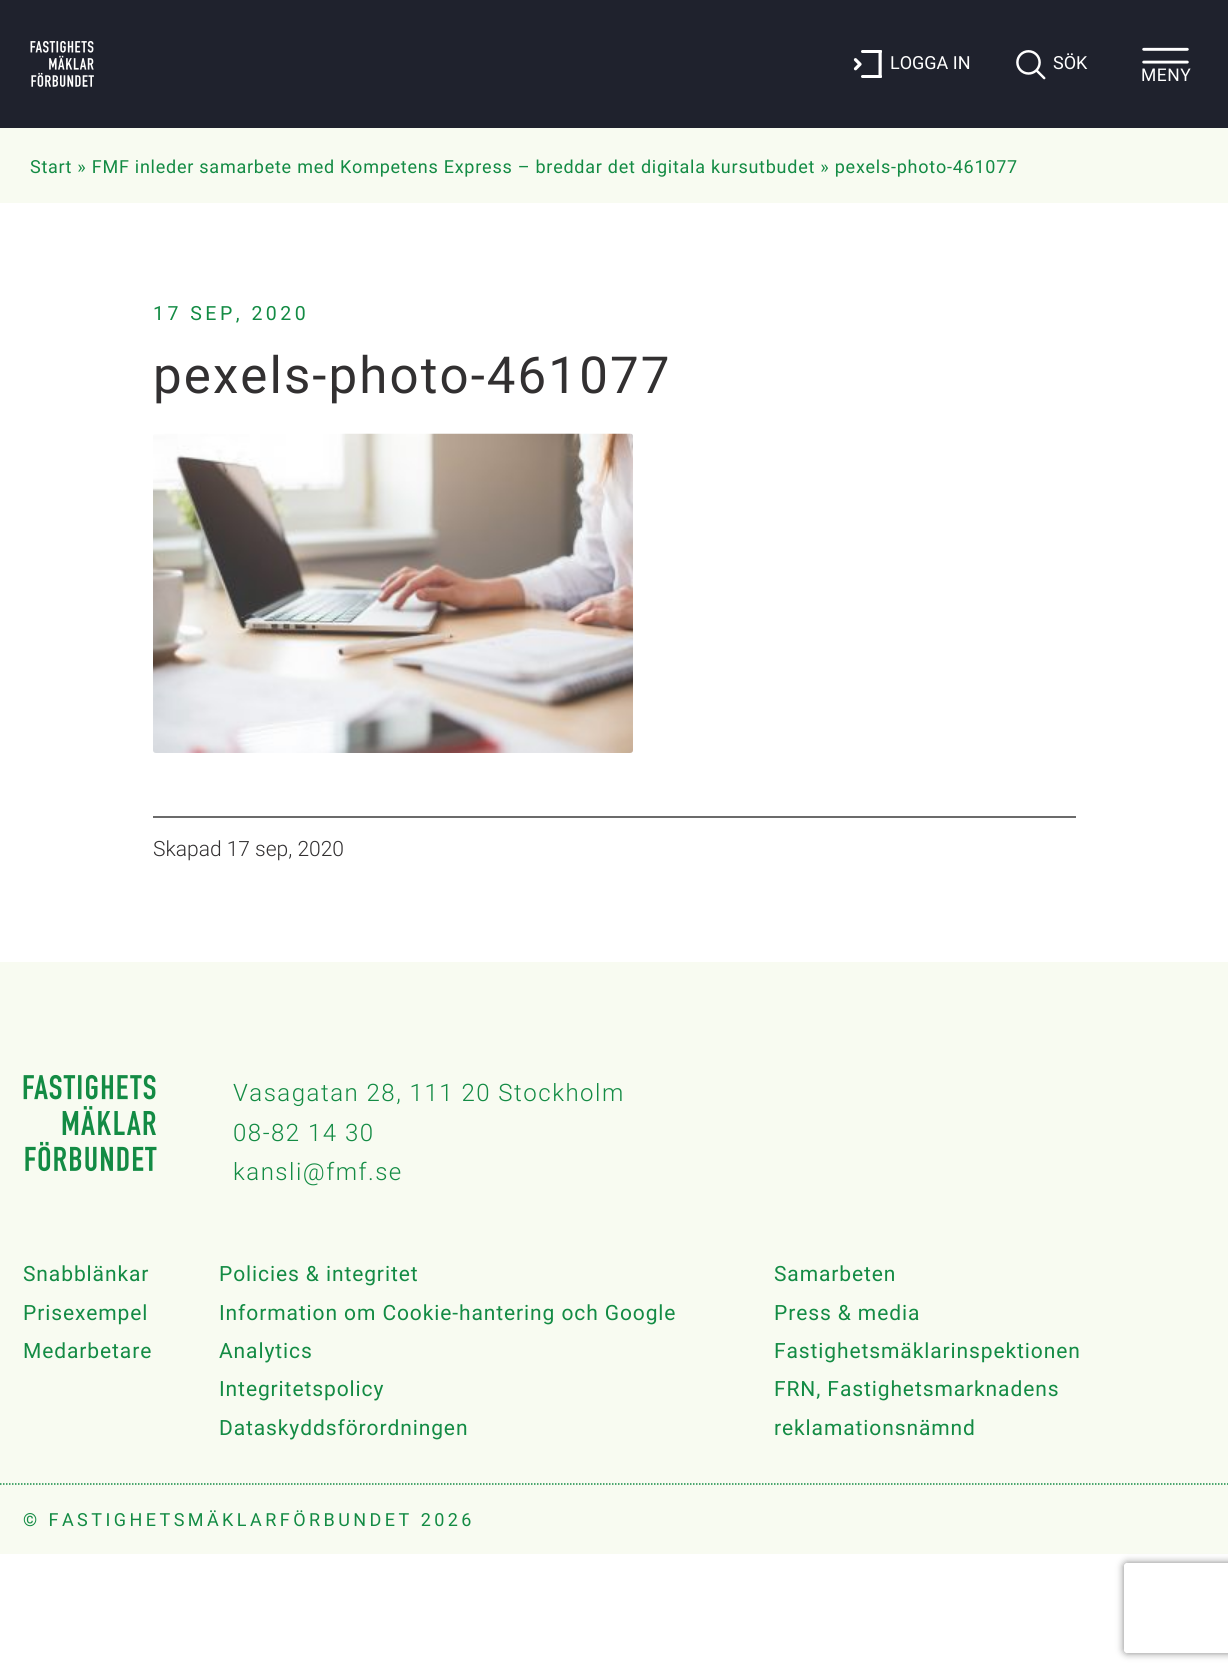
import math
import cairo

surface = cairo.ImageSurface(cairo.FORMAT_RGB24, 1228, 1674)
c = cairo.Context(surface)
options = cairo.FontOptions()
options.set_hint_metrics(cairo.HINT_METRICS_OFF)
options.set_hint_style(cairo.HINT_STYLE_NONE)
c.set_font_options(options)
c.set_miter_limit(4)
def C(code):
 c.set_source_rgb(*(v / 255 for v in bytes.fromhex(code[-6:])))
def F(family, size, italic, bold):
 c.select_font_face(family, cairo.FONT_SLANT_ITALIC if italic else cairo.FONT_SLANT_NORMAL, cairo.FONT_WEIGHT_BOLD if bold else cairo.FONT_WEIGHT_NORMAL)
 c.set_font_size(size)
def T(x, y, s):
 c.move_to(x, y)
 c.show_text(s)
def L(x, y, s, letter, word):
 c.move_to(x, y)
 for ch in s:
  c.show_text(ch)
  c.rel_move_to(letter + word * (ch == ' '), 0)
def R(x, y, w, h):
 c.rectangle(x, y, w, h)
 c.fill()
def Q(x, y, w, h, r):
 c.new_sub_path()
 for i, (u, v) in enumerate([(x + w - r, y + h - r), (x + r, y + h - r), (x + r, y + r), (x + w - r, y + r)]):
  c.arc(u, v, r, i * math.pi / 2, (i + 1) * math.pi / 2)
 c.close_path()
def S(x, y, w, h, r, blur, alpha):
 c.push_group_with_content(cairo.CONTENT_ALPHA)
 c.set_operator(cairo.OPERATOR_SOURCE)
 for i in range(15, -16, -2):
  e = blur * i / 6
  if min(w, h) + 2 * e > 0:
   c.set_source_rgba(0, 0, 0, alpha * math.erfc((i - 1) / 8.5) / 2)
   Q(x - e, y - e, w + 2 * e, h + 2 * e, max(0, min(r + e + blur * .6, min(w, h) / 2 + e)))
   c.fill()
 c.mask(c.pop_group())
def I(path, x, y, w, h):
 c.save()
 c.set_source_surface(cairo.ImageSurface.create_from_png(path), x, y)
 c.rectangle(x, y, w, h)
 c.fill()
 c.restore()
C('ffffff')
c.paint()
C('1f222d')
R(0,0,1228,128)
I('1.png',30,41,64,46)
I('2.png',853,50,29,28)
F('Roboto',18,0,0)
C('ffffff')
T(890,69,'LOGGA IN')
I('3.png',1016,50,30,30)
T(1053,69,'SÖK')
I('4.png',1142,47,47,17)
F('Roboto',17.5,0,0)
L(1141,81,'MENY',.5,0)
C('f8fbf1')
R(0,128,1228,75)
F('Roboto',18,0,0)
C('138b44')
L(30,173,'Start » FMF inleder samarbete med Kompetens Express – breddar det digitala kursutbudet » pexels-photo-461077',.75,0)
F('Roboto',19.5,0,0)
L(153,320,'17 SEP, 2020',3.5,0)
F('Roboto',51,0,0)
C('323031')
L(153,393,'pexels-photo-461077',2.1,0)
I('5.png',153,433,480,320)
C('6b6b6b')
R(153,816,923,2)
F('Roboto Light',21,0,0)
C('323031')
T(153,856,'Skapad 17 sep, 2020')
C('f8fbf1')
R(0,962,1228,592)
I('6.png',23,1074,134,98)
F('Roboto Light',24,0,0)
C('138b44')
L(233,1101,'Vasagatan 28, 111 20 Stockholm',1.5,0)
L(233,1141,'08-82 14 30',1.5,0)
L(233,1180,'kansli@fmf.se',1.5,0)
F('Roboto',21,0,0)
L(23,1281,'Snabblänkar',.9,0)
L(23,1320,'Prisexempel',.9,0)
L(23,1358,'Medarbetare',.9,0)
L(219,1281,'Policies & integritet',.9,0)
L(219,1320,'Information om Cookie-hantering och Google',.9,0)
L(219,1358,'Analytics',.9,0)
L(219,1396,'Integritetspolicy',.9,0)
L(219,1435,'Dataskyddsförordningen',.9,0)
L(774,1281,'Samarbeten',.9,0)
L(774,1320,'Press & media',.9,0)
L(774,1358,'Fastighetsmäklarinspektionen',.9,0)
L(774,1396,'FRN, Fastighetsmarknadens',.9,0)
L(774,1435,'reklamationsnämnd',.9,0)
c.new_path()
c.move_to(0,1484)
c.line_to(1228.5,1484)
c.set_line_width(1.5)
c.set_dash([1.5,1.5])
c.stroke()
F('Roboto',18,0,0)
L(23,1526,'© FASTIGHETSMÄKLARFÖRBUNDET 2026',3.45,0)
c.save()
c.set_fill_rule(cairo.FILL_RULE_EVEN_ODD)
c.new_path()
c.move_to(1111,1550)
c.line_to(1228,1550)
c.line_to(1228,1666)
c.line_to(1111,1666)
c.close_path()
c.move_to(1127,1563)
c.line_to(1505,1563)
c.curve_to(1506.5,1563,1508,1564.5,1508,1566)
c.line_to(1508,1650)
c.curve_to(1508,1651.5,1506.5,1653,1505,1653)
c.line_to(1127,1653)
c.curve_to(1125.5,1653,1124,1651.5,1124,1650)
c.line_to(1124,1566)
c.curve_to(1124,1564.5,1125.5,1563,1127,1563)
c.close_path()
c.clip()
C('808080')
S(1124,1563,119,90,3,4,1)
c.restore()
surface.write_to_png('o.png')
